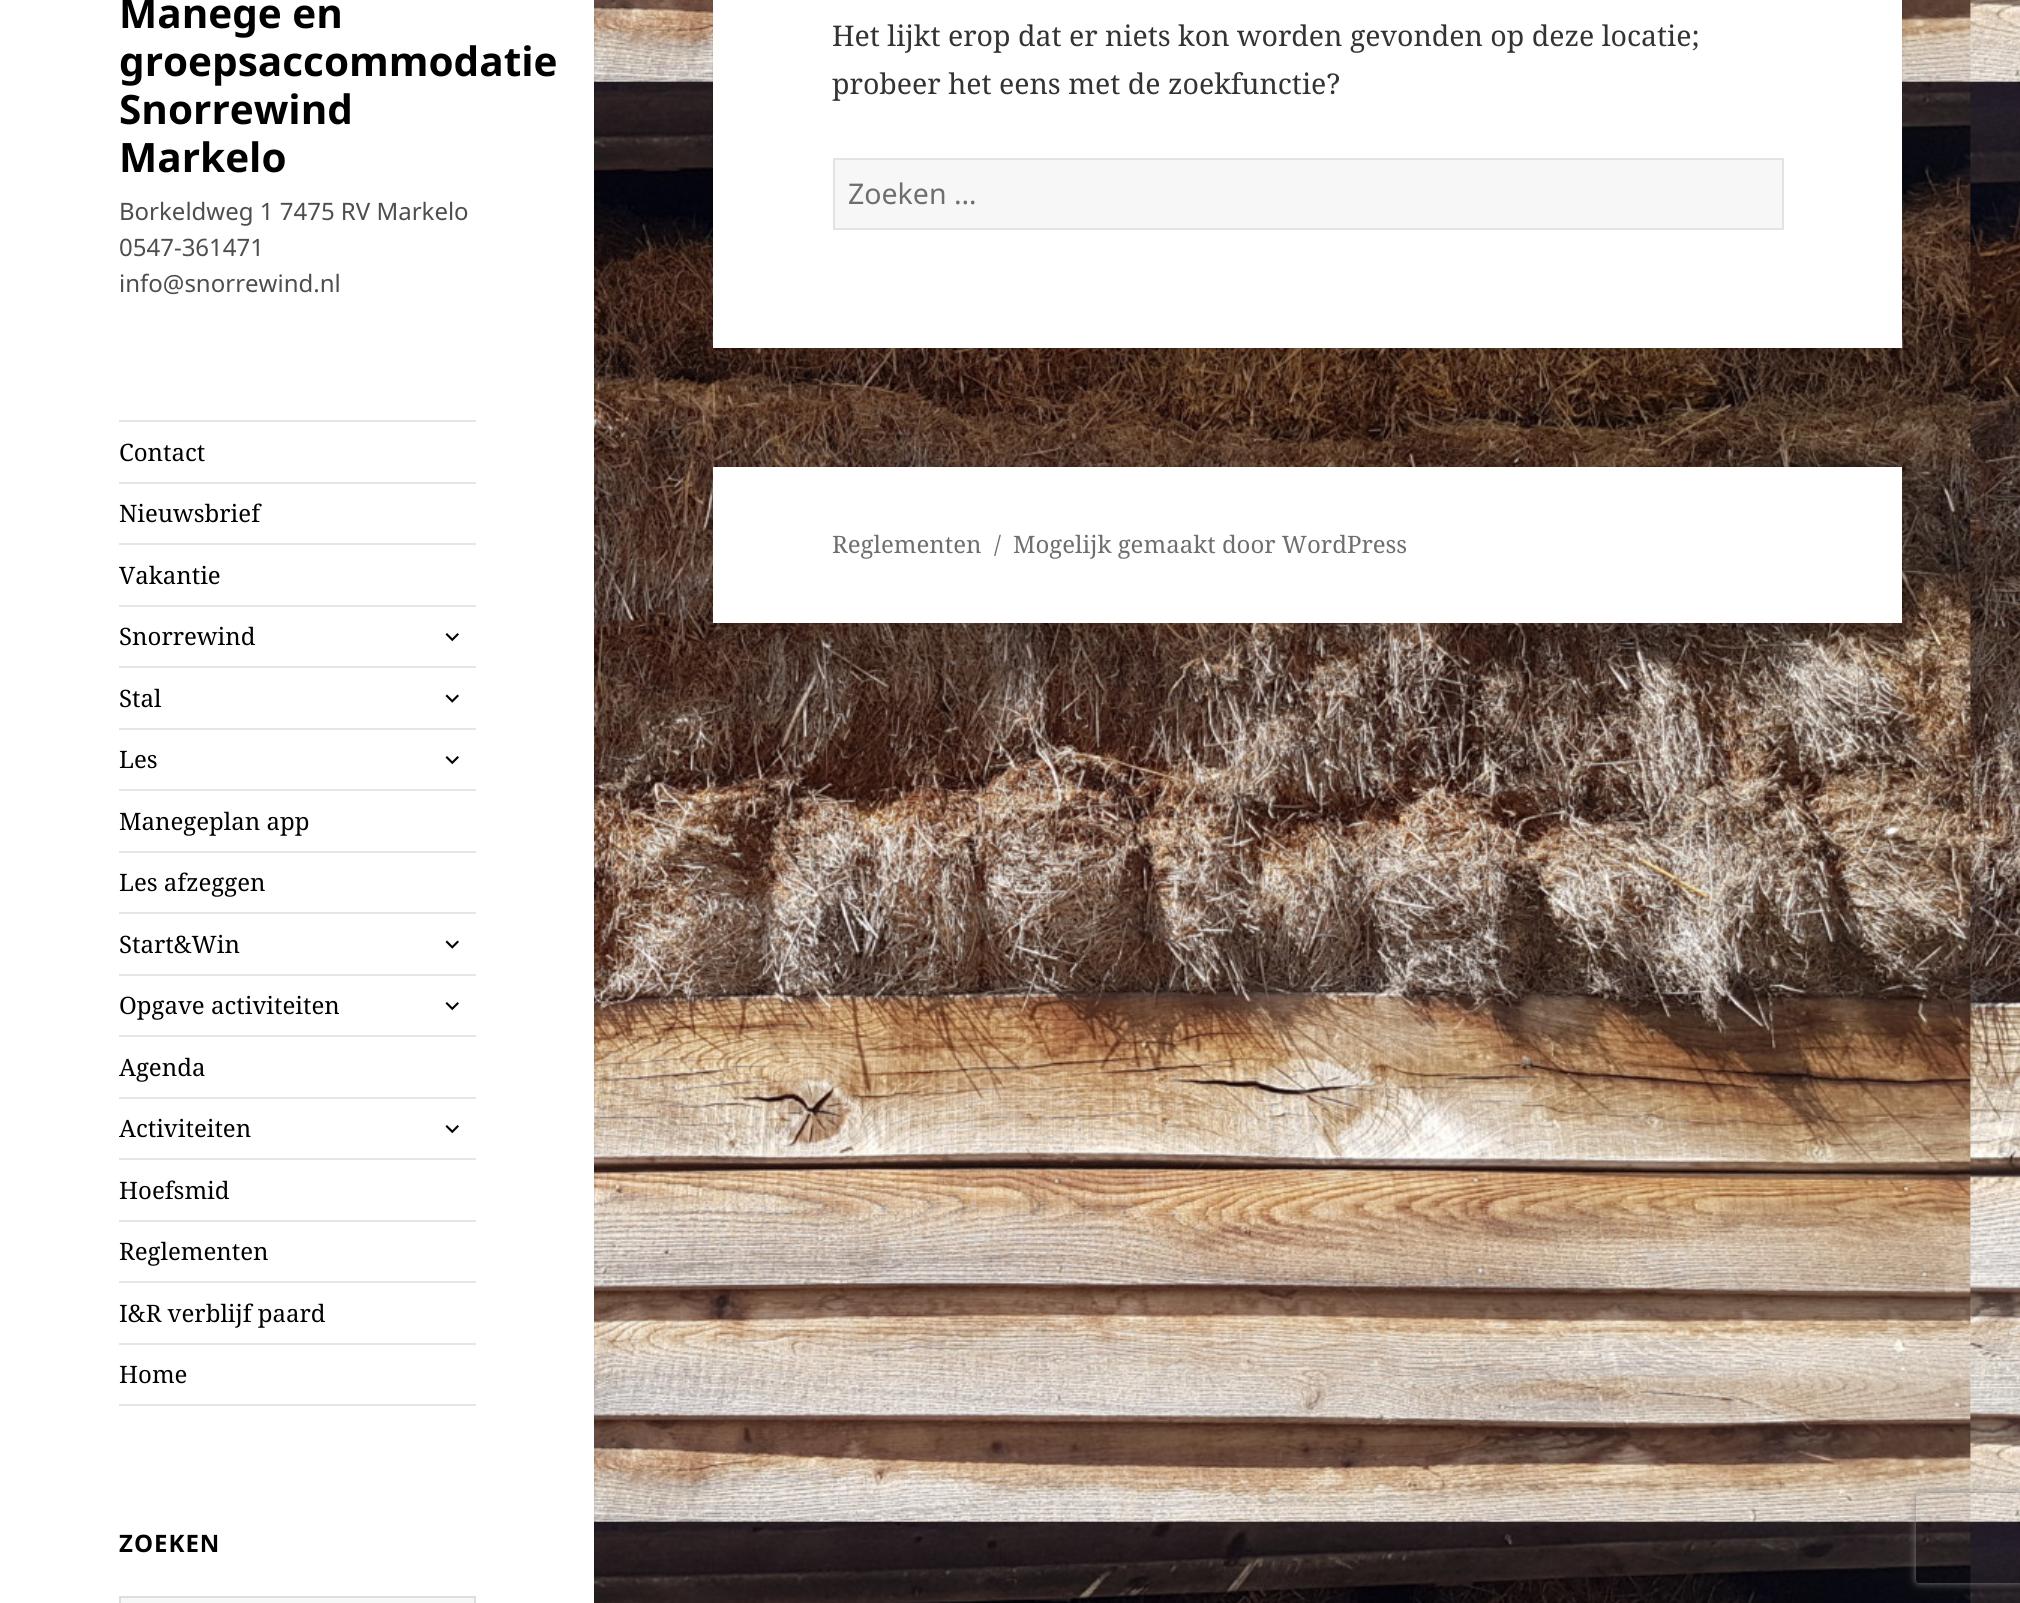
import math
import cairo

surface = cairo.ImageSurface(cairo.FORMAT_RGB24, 2020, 1603)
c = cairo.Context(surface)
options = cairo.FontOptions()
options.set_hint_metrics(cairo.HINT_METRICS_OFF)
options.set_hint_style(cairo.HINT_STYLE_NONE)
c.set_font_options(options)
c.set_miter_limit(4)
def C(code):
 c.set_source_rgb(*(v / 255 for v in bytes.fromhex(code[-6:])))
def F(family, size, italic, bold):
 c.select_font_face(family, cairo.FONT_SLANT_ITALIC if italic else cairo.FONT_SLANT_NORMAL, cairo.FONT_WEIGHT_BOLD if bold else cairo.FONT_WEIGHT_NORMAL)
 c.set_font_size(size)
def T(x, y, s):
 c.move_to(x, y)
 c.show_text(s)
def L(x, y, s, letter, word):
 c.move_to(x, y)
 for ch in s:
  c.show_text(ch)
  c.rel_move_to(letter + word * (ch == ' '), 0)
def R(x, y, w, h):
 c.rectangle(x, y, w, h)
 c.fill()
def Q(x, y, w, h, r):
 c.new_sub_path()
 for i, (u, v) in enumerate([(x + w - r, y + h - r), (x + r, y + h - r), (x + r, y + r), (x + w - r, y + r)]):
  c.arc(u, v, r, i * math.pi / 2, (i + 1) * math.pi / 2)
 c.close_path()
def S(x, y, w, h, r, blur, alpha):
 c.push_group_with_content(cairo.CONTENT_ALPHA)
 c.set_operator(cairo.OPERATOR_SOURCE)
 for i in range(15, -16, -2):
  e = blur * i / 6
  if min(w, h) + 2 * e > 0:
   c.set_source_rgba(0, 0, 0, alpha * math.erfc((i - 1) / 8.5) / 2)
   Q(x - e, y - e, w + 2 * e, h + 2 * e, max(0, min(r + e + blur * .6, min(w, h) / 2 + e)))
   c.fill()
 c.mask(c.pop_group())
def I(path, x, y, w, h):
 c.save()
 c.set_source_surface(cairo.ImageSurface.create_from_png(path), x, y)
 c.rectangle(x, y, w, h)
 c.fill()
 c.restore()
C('ffffff')
c.paint()
I('1.png',594,0,1426,1603)
C('000000')
S(0,0,594,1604,0,1,.15)
C('ffffff')
R(0,0,594,1603)
F('Noto Sans',40.5,0,1)
C('000000')
T(119,28,'Manege en')
T(119,76,'groepsaccommodatie')
T(119,124,'Snorrewind')
T(119,172,'Markelo')
F('Noto Sans',24,0,0)
C('4d4d4d')
T(119,220,'Borkeldweg 1 7475 RV Markelo')
T(119,256,'0547-361471')
T(119,292,'info@snorrewind.nl')
C('e6e6e6')
R(119,420,357,2)
R(119,1404,357,2)
F('Noto Serif',24,0,0)
C('000000')
T(119,461,'Contact')
C('e6e6e6')
R(119,482,357,2)
C('000000')
T(119,522,'Nieuwsbrief')
C('e6e6e6')
R(119,543,357,2)
C('000000')
T(119,584,'Vakantie')
C('e6e6e6')
R(119,605,357,2)
C('000000')
T(119,645,'Snorrewind')
I('2.png',445,633,14,9)
C('e6e6e6')
R(119,666,357,2)
C('000000')
T(119,707,'Stal')
I('3.png',445,694,14,9)
C('e6e6e6')
R(119,728,357,2)
C('000000')
T(119,768,'Les')
I('2.png',445,756,14,9)
C('e6e6e6')
R(119,789,357,2)
C('000000')
T(119,830,'Manegeplan app')
C('e6e6e6')
R(119,851,357,2)
C('000000')
T(119,891,'Les afzeggen')
C('e6e6e6')
R(119,912,357,2)
C('000000')
T(119,953,'Start&Win')
I('3.png',445,940,14,9)
C('e6e6e6')
R(119,974,357,2)
C('000000')
T(119,1014,'Opgave activiteiten')
I('2.png',445,1002,14,9)
C('e6e6e6')
R(119,1035,357,2)
C('000000')
T(119,1076,'Agenda')
C('e6e6e6')
R(119,1097,357,2)
C('000000')
T(119,1137,'Activiteiten')
I('2.png',445,1125,14,9)
C('e6e6e6')
R(119,1158,357,2)
C('000000')
T(119,1199,'Hoefsmid')
C('e6e6e6')
R(119,1220,357,2)
C('000000')
T(119,1260,'Reglementen')
C('e6e6e6')
R(119,1281,357,2)
C('000000')
T(119,1322,'I&R verblijf paard')
C('e6e6e6')
R(119,1343,357,2)
C('000000')
T(119,1383,'Home')
F('Noto Sans',24,0,1)
L(119,1552,'ZOEKEN',1,0)
C('f7f7f7')
c.rectangle(120,1597,355,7)
c.fill_preserve()
C('dedede')
c.stroke()
C('000000')
S(713,-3,1189,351,0,1,.15)
C('ffffff')
R(713,0,1189,348)
F('Noto Serif',28.5,0,0)
C('333333')
T(832,46,'Het lijkt erop dat er niets kon worden gevonden op deze locatie;')
T(832,94,'probeer het eens met de zoekfunctie?')
C('f7f7f7')
c.rectangle(834,159,949,70)
c.fill_preserve()
C('e3e3e3')
c.stroke()
F('Noto Sans',28.5,0,0)
C('6e6e6e')
T(848,204,'Zoeken …')
C('000000')
S(713,467,1189,156,0,1,.15)
C('ffffff')
R(713,467,1189,156)
F('Noto Serif',24,0,0)
C('6e6e6e')
T(832,553,'Reglementen')
T(994,553,'/')
T(1013,553,'Mogelijk gemaakt door WordPress')
c.save()
c.set_fill_rule(cairo.FILL_RULE_EVEN_ODD)
c.new_path()
c.move_to(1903,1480)
c.line_to(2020,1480)
c.line_to(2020,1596)
c.line_to(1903,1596)
c.close_path()
c.move_to(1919,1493)
c.line_to(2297,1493)
c.curve_to(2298.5,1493,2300,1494.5,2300,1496)
c.line_to(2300,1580)
c.curve_to(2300,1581.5,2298.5,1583,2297,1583)
c.line_to(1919,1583)
c.curve_to(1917.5,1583,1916,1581.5,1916,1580)
c.line_to(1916,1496)
c.curve_to(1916,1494.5,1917.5,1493,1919,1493)
c.close_path()
c.clip()
C('808080')
S(1916,1493,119,90,3,4,1)
c.restore()
surface.write_to_png('o.png')
